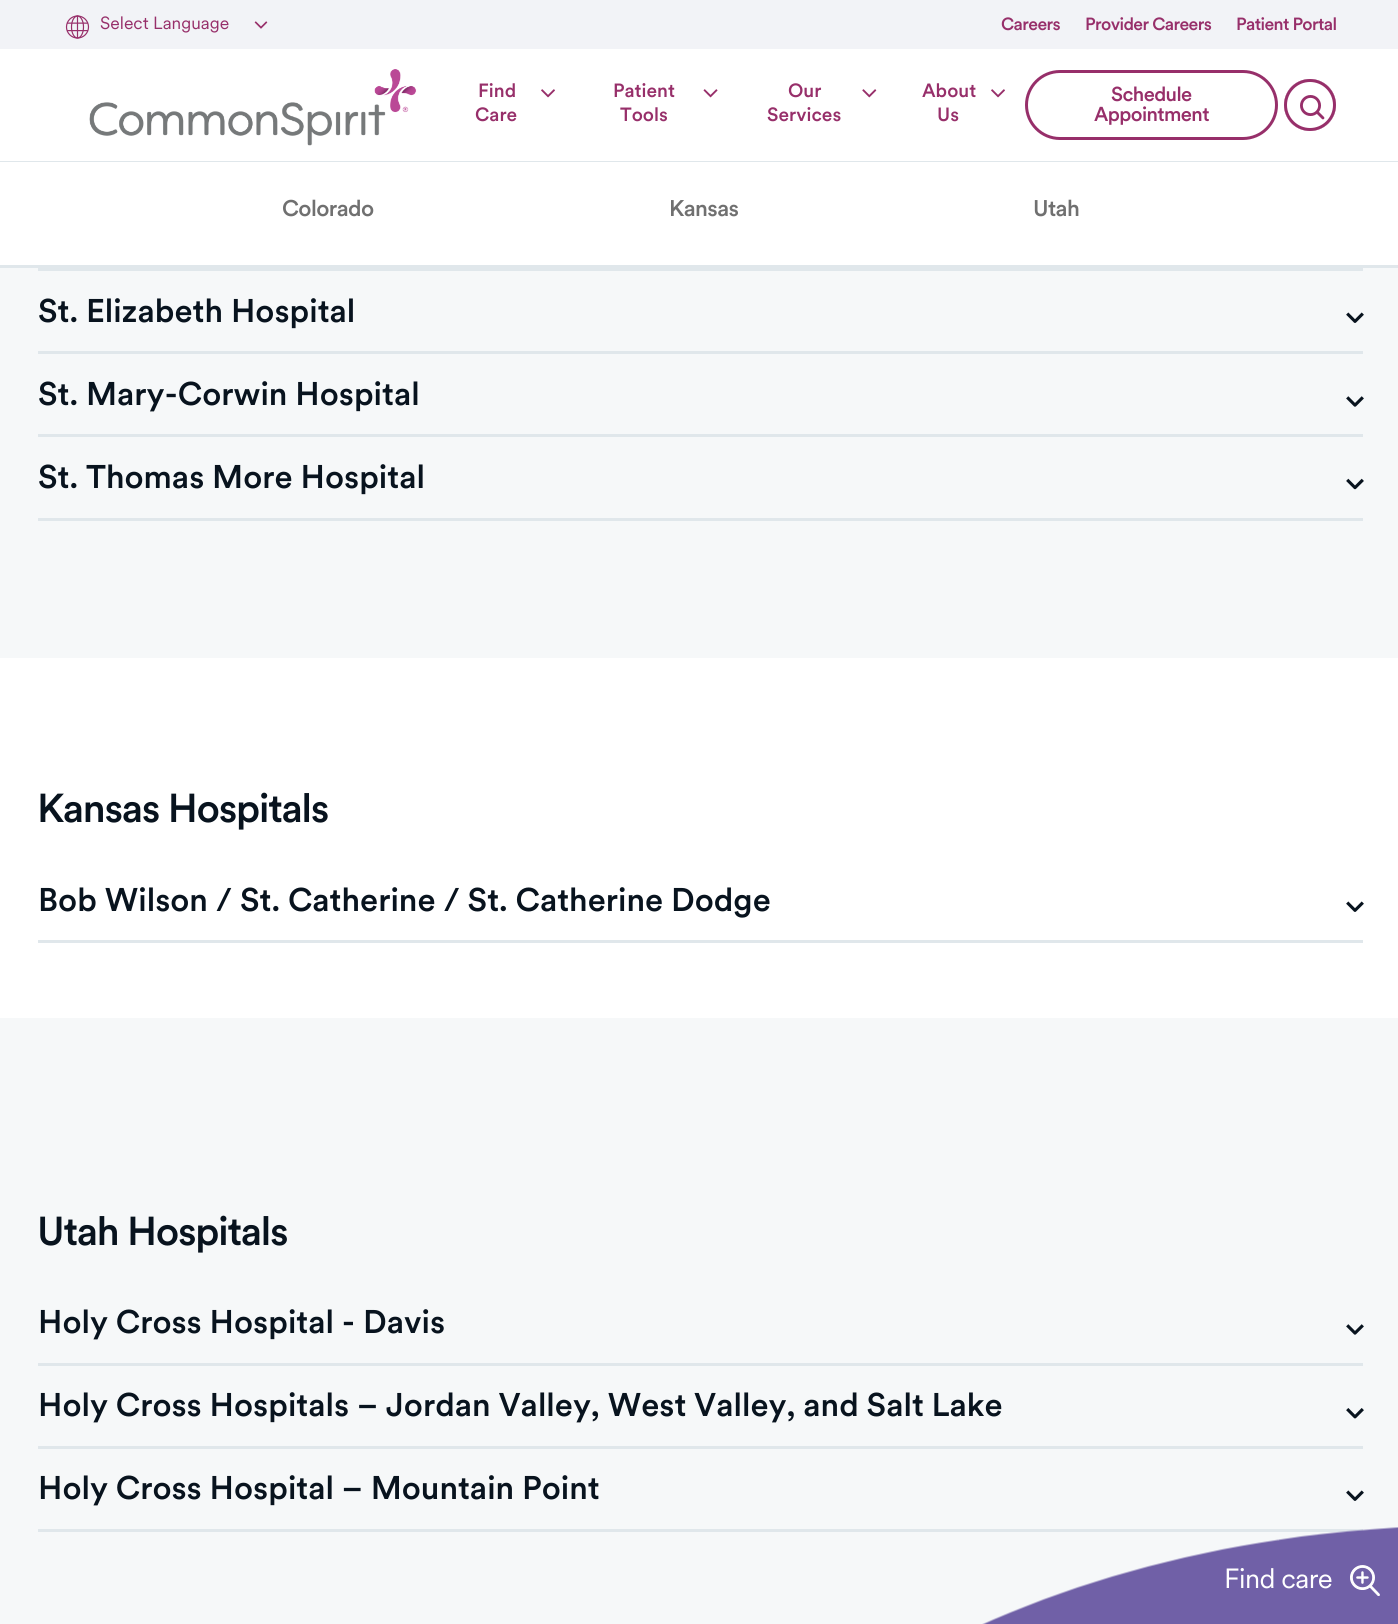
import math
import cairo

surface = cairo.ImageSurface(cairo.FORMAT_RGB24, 1398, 1624)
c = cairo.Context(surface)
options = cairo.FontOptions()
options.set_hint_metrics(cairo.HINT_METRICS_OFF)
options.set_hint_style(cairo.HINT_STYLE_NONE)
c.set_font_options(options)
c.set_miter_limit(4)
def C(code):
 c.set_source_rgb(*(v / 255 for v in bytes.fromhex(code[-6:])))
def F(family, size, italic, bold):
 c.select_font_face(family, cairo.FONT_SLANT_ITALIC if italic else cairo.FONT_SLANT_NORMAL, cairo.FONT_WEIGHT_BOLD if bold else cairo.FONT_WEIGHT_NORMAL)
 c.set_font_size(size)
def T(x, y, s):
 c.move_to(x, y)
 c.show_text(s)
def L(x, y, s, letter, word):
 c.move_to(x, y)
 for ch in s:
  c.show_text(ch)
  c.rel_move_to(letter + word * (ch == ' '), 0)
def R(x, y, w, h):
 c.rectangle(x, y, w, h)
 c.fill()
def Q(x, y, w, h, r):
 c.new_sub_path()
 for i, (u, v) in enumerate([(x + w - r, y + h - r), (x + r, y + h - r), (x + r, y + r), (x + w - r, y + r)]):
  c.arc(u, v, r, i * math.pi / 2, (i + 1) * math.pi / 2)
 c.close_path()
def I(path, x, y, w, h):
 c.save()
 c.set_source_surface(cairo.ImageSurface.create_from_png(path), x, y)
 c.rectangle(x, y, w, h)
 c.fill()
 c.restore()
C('ffffff')
c.paint()
C('e0e7eb')
R(0,161,1398,1)
C('f2f3f7')
R(0,0,1398,49)
I('1.png',65,15,25,24)
F('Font',17.5,0,0)
C('972f6a')
T(100,29,'Select Language')
I('2.png',254,21,14,8)
F('Font Medium',17.5,0,0)
L(1001,30,'Careers',-.6,0)
L(1085,30,'Provider Careers',-.6,0)
L(1236,30,'Patient Portal',-.6,0)
I('3.png',89,69,328,77)
F('Font Medium',19,0,0)
T(478,97,'Find')
I('4.png',541,89,14,9)
T(475,121,'Care')
T(613,97,'Patient')
I('5.png',703,89,15,9)
T(620,121,'Tools')
T(788,97,'Our')
I('6.png',862,89,15,9)
T(767,121,'Services')
T(922,97,'About')
I('4.png',991,89,14,9)
T(937,121,'Us')
Q(1026.5,71.5,250,67,33.5)
c.set_line_width(3)
c.stroke()
F('Font Medium',20,0,0)
L(1111,101,'Schedule',-.6,0)
L(1094,121,'Appointment',-.6,0)
c.new_path()
c.arc(1310,105,25.5,0,2 * math.pi)
c.set_line_width(1)
c.stroke()
C('ffffff')
c.arc(1310,105,26,0,2 * math.pi)
c.fill()
I('7.png',1300,95,25,25)
c.arc(1310,105,24.5,0,2 * math.pi)
C('972f6a')
c.set_line_width(3)
c.stroke()
C('e0e7eb')
R(0,265,1398,3)
F('Font Medium',22.5,0,0)
C('707070')
L(282,216,'Colorado',-.6,0)
L(669,216,'Kansas',-.6,0)
L(1033,216,'Utah',-.6,0)
C('f6f8f9')
R(0,268,1398,390)
C('e0e7eb')
R(38,268,1325,3)
R(38,351,1325,3)
F('Font Medium',32.5,0,0)
C('08131e')
T(38,322,'St. Elizabeth Hospital')
I('8.png',1346,312,18,11)
C('e0e7eb')
R(38,434,1325,3)
C('08131e')
T(38,405,'St. Mary-Corwin Hospital')
I('9.png',1346,396,18,11)
C('e0e7eb')
R(38,518,1325,3)
C('08131e')
T(38,488,'St. Thomas More Hospital')
I('10.png',1346,478,18,12)
F('Font Medium',40,0,0)
L(37,822,'Kansas Hospitals',-1.25,0)
C('e0e7eb')
R(38,940,1325,3)
F('Font Medium',32.5,0,0)
C('08131e')
T(38,911,'Bob Wilson / St. Catherine / St. Catherine Dodge')
I('11.png',1346,901,18,11)
C('f6f8f9')
R(0,1018,1398,606)
F('Font Medium',40,0,0)
C('08131e')
L(37,1245,'Utah Hospitals',-1.25,0)
C('e0e7eb')
R(38,1363,1325,3)
F('Font Medium',32.5,0,0)
C('08131e')
T(38,1333,'Holy Cross Hospital - Davis')
I('12.png',1346,1324,18,11)
C('e0e7eb')
R(38,1446,1325,3)
C('08131e')
T(38,1416,'Holy Cross Hospitals – Jordan Valley, West Valley, and Salt Lake')
I('13.png',1346,1408,18,11)
C('e0e7eb')
R(38,1529,1325,3)
C('08131e')
T(38,1499,'Holy Cross Hospital – Mountain Point')
I('14.png',1346,1490,18,11)
I('15.png',982,1527,416,97)
F('Font',27.5,0,0)
C('ffffff')
L(1224,1588,'Find care',-.6,0)
I('16.png',1350,1565,30,31)
surface.write_to_png('o.png')
